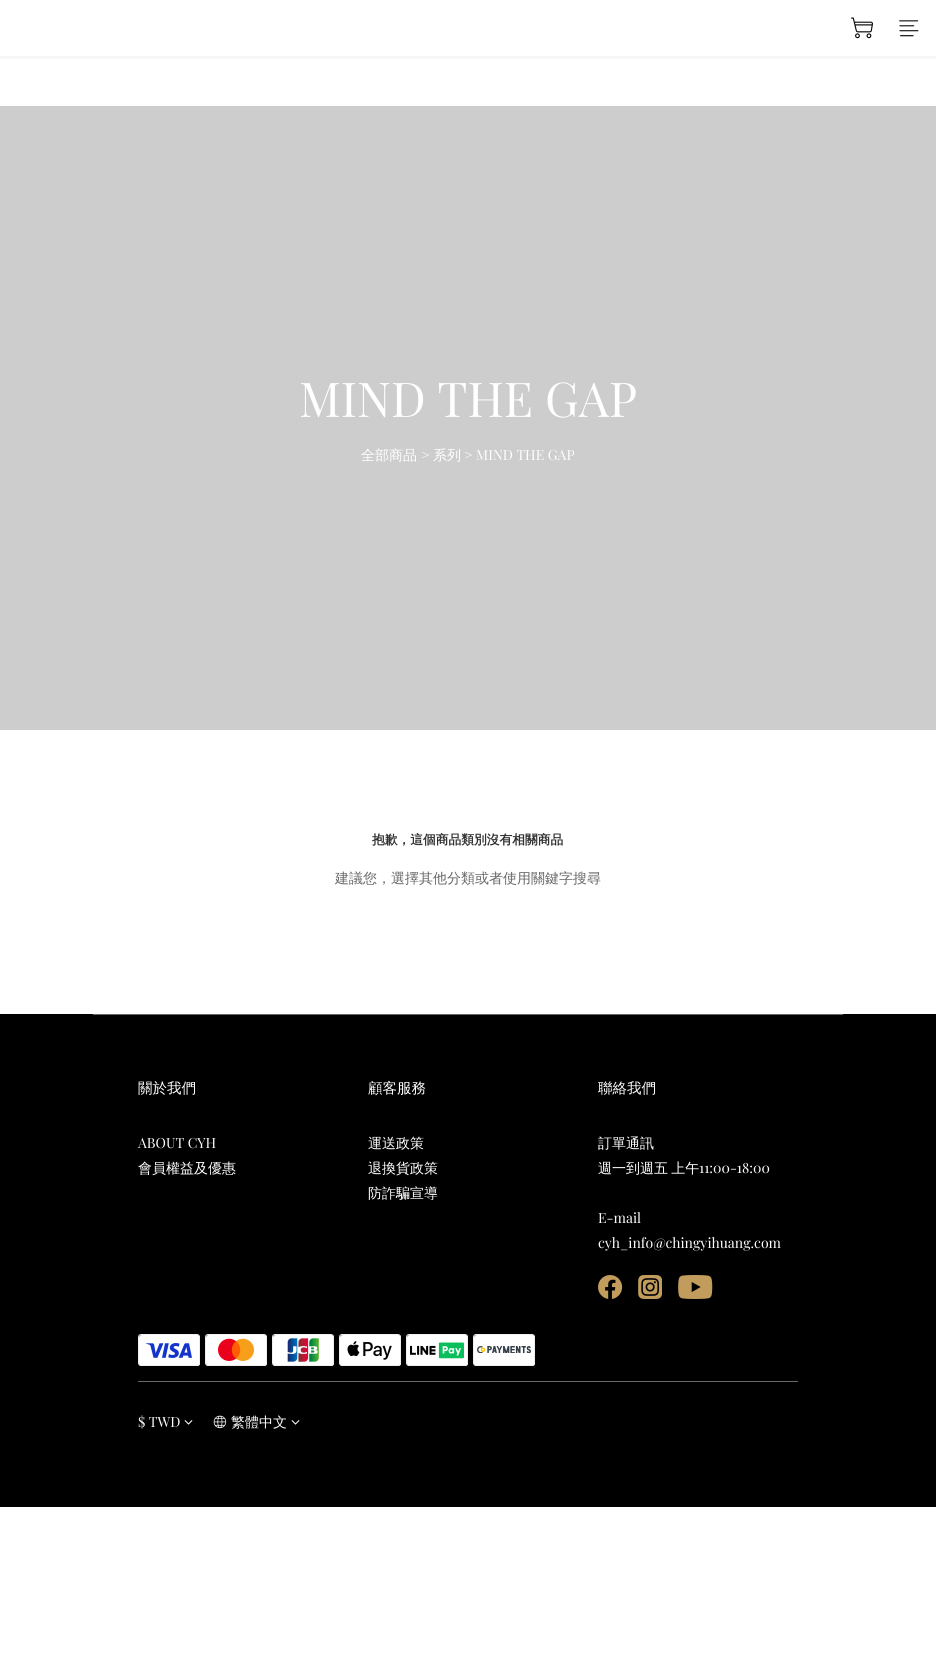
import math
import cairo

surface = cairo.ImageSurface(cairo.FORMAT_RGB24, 936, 1663)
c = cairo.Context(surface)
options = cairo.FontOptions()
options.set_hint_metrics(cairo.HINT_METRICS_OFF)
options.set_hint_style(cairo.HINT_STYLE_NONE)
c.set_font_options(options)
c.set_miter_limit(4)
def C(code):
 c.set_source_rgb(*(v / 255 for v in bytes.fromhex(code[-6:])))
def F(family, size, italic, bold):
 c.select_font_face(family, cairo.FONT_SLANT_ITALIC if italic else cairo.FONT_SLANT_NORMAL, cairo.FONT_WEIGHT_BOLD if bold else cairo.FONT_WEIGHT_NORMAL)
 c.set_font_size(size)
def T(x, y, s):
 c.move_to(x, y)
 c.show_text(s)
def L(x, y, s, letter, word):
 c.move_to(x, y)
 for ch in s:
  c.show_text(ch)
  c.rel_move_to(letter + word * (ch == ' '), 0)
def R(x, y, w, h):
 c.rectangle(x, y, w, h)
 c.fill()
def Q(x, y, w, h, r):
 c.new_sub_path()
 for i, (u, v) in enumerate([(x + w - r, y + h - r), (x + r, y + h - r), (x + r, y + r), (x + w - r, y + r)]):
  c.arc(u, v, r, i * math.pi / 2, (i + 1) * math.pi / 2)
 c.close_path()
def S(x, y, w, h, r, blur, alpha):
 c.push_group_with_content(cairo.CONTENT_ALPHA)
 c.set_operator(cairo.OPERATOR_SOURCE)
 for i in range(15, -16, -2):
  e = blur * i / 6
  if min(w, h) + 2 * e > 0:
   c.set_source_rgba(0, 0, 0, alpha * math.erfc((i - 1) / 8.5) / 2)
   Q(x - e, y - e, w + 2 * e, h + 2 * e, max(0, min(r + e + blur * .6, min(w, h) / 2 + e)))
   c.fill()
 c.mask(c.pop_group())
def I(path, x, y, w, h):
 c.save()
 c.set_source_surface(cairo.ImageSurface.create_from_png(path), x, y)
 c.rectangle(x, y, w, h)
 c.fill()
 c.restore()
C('ffffff')
c.paint()
c.save()
c.rectangle(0,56,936,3)
c.clip()
C('000000')
S(0,2,936,56,0,3,.06)
c.restore()
I('1.png',851,17,22,22)
I('2.png',899,20,20,17)
C('cdcdcd')
R(0,106,936,624)
F('Playfair Display',48,0,0)
C('ffffff')
T(299,417,'MIND THE GAP')
F('WenQuanYi Zen Hei Medium',14,0,0)
T(361,460,'全部商品')
F('Playfair Display',14,0,0)
T(421,460,'>')
F('WenQuanYi Zen Hei Medium',14,0,0)
T(433,460,'系列')
F('Playfair Display',14,0,0)
T(464,460,'> MIND THE GAP')
F('WenQuanYi Zen Hei',12.75,0,1)
C('333333')
T(372,844,'抱歉，這個商品類別沒有相關商品')
F('WenQuanYi Zen Hei Medium',14,0,0)
C('666666')
T(335,883,'建議您，選擇其他分類或者使用關鍵字搜尋')
C('000000')
R(0,1014,936,493)
C('666666')
R(93,1014,750,1)
F('WenQuanYi Zen Hei Medium',14.5,0,0)
C('ffffff')
T(138,1093,'關於我們')
F('Playfair Display',14,0,0)
T(138,1148,'ABOUT CYH')
F('WenQuanYi Zen Hei Medium',14,0,0)
T(138,1173,'會員權益及優惠')
F('WenQuanYi Zen Hei Medium',14.5,0,0)
T(368,1093,'顧客服務')
F('WenQuanYi Zen Hei Medium',14,0,0)
T(368,1148,'運送政策')
T(368,1173,'退換貨政策')
T(368,1198,'防詐騙宣導')
F('WenQuanYi Zen Hei Medium',14.5,0,0)
T(598,1093,'聯絡我們')
F('WenQuanYi Zen Hei Medium',14,0,0)
T(598,1148,'訂單通訊')
L(598,1173,'週一到週五 上午',0,-1)
F('Playfair Display',14,0,0)
T(699,1173,'11:00-18:00')
T(598,1223,'E-mail')
T(598,1248,'cyh_info@chingyihuang.com')
I('3.png',598,1275,25,24)
I('4.png',638,1275,24,24)
I('5.png',678,1275,35,24)
I('6.png',138,1334,62,32)
I('7.png',205,1334,62,32)
I('8.png',272,1334,62,32)
I('9.png',339,1334,62,32)
I('10.png',406,1334,62,32)
I('11.png',473,1334,62,32)
C('666666')
R(138,1381,660,1)
C('ffffff')
T(138,1427,'$ TWD')
I('12.png',184,1420,9,5)
I('13.png',213,1415,14,14)
F('WenQuanYi Zen Hei Medium',14,0,0)
T(231,1427,'繁體中文')
I('12.png',291,1420,9,5)
surface.write_to_png('o.png')
